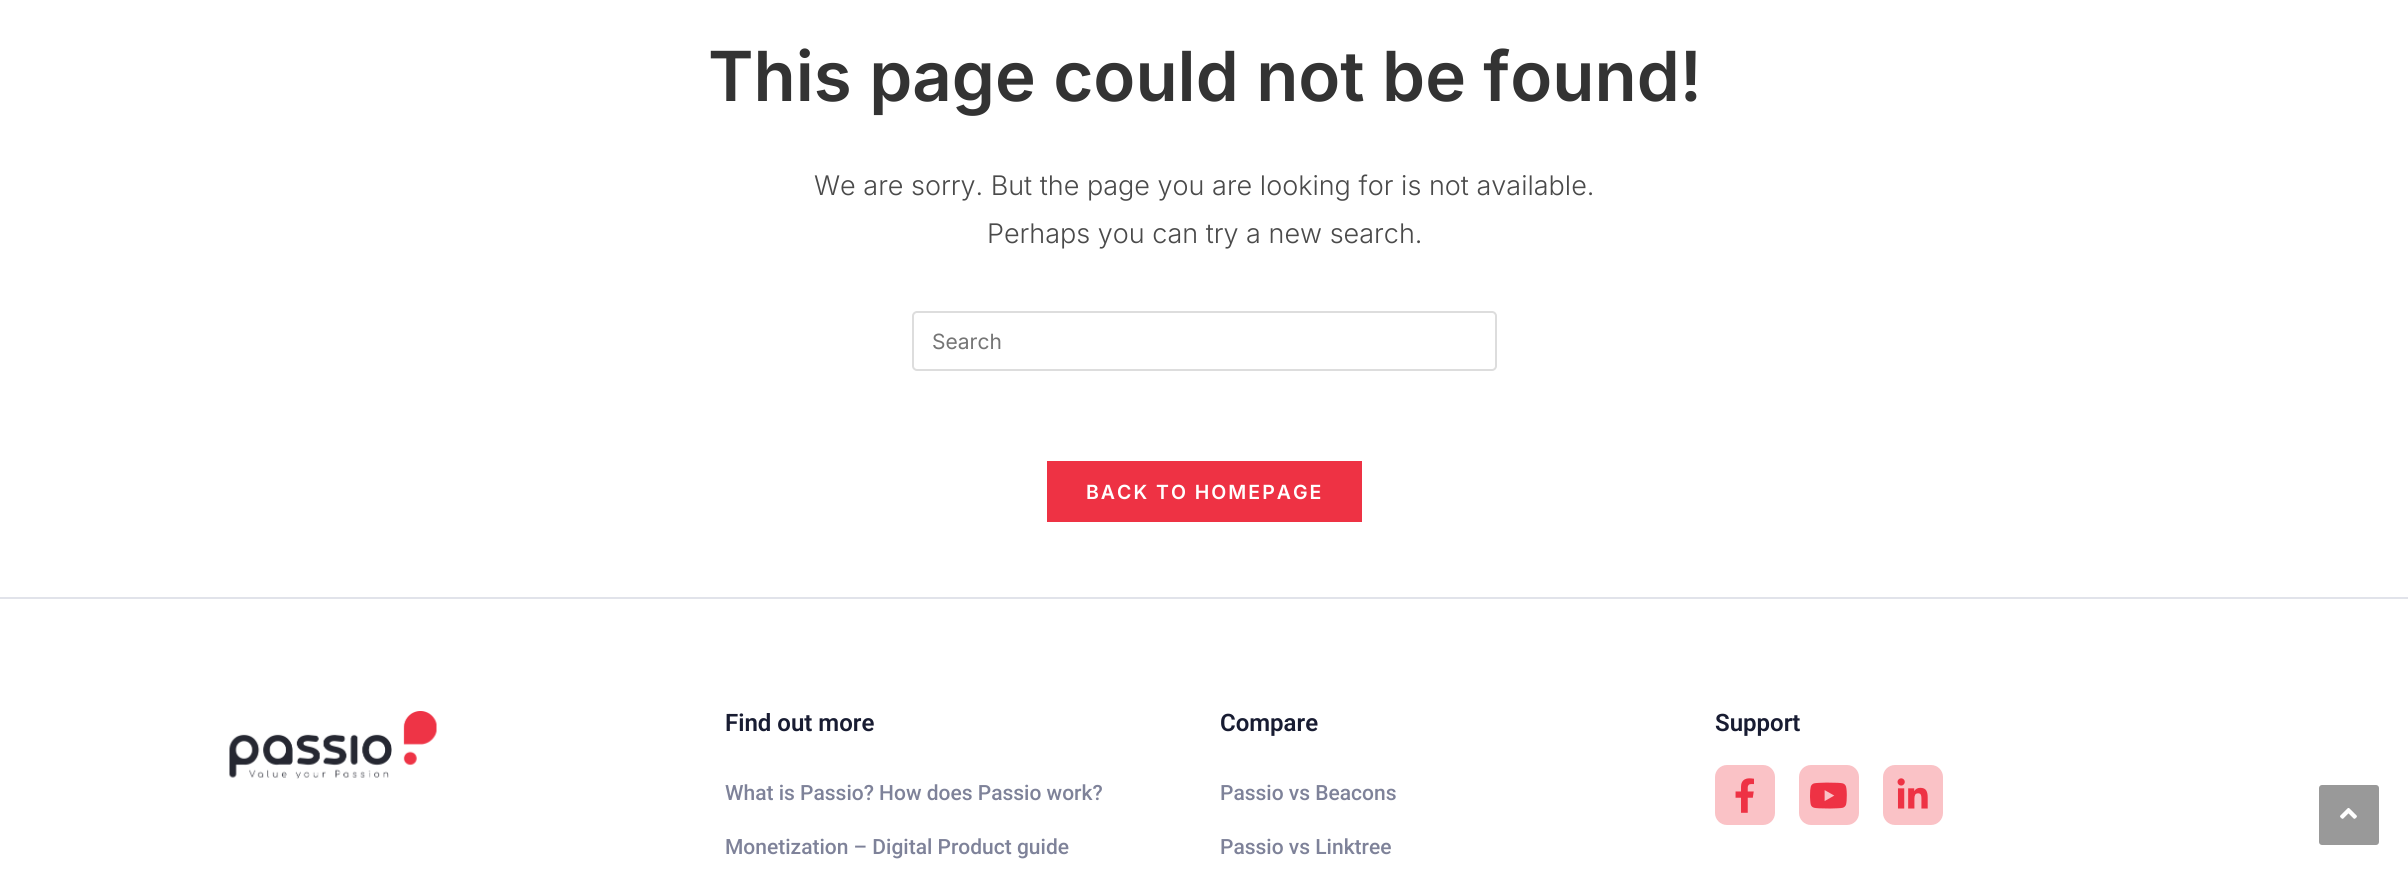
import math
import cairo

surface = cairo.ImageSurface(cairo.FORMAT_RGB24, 2408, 874)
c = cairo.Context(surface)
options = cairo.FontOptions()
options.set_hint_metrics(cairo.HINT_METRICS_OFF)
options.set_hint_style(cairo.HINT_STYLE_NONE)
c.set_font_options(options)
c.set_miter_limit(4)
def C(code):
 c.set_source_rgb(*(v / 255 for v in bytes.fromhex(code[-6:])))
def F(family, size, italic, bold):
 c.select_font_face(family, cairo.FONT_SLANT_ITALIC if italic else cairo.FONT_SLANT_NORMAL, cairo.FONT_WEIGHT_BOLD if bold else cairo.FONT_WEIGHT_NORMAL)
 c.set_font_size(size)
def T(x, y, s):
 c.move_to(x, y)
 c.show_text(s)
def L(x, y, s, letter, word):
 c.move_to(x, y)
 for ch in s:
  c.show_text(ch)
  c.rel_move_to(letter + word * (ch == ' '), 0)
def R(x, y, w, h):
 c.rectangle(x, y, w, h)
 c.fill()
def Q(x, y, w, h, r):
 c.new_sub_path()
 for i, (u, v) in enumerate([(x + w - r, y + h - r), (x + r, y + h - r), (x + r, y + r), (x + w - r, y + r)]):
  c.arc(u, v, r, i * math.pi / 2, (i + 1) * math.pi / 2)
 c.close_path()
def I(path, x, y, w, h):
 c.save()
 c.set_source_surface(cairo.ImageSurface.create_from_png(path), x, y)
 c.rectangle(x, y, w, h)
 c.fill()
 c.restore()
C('ffffff')
c.paint()
F('Inter SemiBold',69,0,0)
C('333333')
T(708,101,'This page could not be found!')
F('Inter Light',27,0,0)
C('4a4a4a')
T(814,195,'We are sorry. But the page you are looking for is not available.')
T(987,243,'Perhaps you can try a new search.')
Q(913,312,583,58,4)
C('dddddd')
c.stroke()
F('Inter',21,0,0)
C('757575')
T(932,349,'Search')
C('ee3244')
R(1047,461,315,61)
F('Inter SemiBold',19.5,0,0)
C('ffffff')
L(1086,499,'BACK TO HOMEPAGE',2,0)
C('e1e3ea')
R(0,597,2408,2)
I('1.png',229,711,208,68)
F('Roboto SemiBold',24,0,0)
C('181c32')
T(725,731,'Find out more')
F('Roboto Medium',21,0,0)
C('7e8299')
T(725,800,'What is Passio? How does Passio work?')
T(725,854,'Monetization – Digital Product guide')
F('Roboto SemiBold',24,0,0)
C('181c32')
T(1220,731,'Compare')
F('Roboto Medium',21,0,0)
C('7e8299')
T(1220,800,'Passio vs Beacons')
T(1220,854,'Passio vs Linktree')
F('Roboto SemiBold',24,0,0)
C('181c32')
T(1715,731,'Support')
C('fac2c6')
Q(1715,765,60,60,12)
c.fill()
I('2.png',1735,778,19,35)
Q(1799,765,60,60,12)
c.fill()
I('3.png',1810,782,37,27)
Q(1883,765,60,60,12)
c.fill()
I('4.png',1897,778,31,31)
C('999999')
Q(2319,785,60,60,3)
c.fill()
I('5.png',2340,808,17,11)
surface.write_to_png('o.png')
